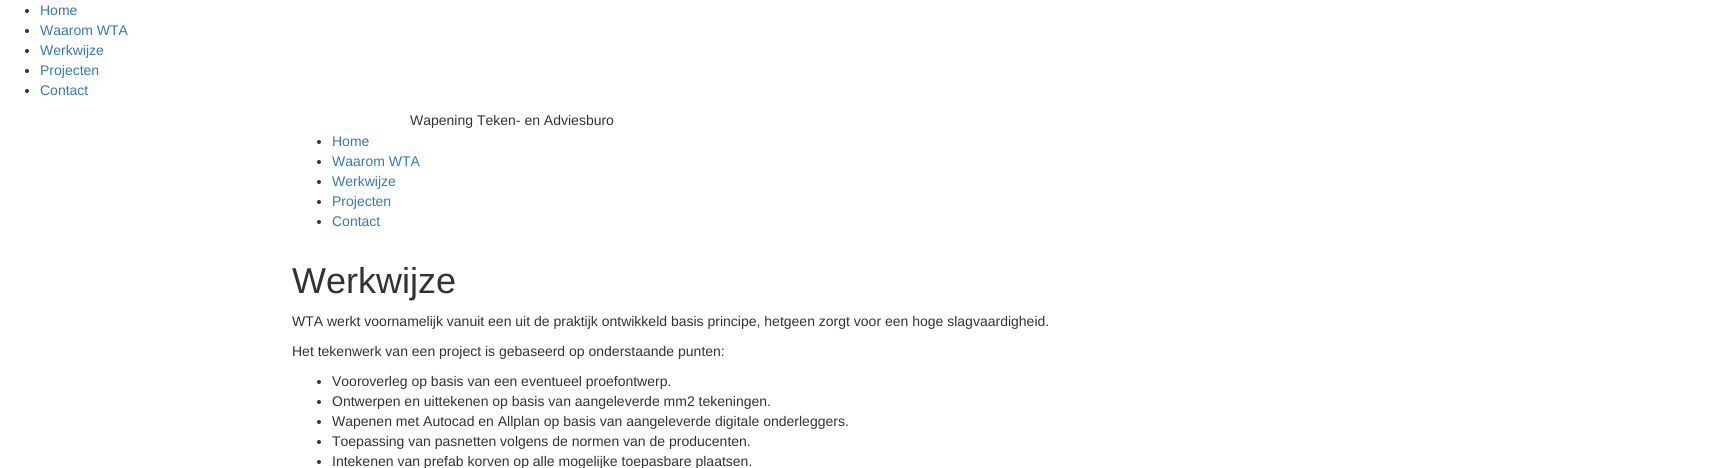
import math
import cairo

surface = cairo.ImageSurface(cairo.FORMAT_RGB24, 1724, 468)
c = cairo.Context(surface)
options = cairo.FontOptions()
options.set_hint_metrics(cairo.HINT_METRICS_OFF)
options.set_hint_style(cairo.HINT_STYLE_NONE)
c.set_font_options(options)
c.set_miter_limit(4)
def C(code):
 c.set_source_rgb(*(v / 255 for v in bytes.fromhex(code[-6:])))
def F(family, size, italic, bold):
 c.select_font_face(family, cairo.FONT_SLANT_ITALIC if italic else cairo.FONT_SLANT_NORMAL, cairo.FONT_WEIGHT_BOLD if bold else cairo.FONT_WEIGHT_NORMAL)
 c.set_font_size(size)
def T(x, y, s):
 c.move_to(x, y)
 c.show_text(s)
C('ffffff')
c.paint()
C('333333')
c.arc(27,11,2,0,2 * math.pi)
c.fill()
F('Liberation Sans',14,0,0)
C('337ab7')
T(40,15,'Home')
C('333333')
c.new_path()
c.arc(27,31,2,0,2 * math.pi)
c.fill()
C('337ab7')
T(40,35,'Waarom WTA')
C('333333')
c.new_path()
c.arc(27,51,2,0,2 * math.pi)
c.fill()
C('337ab7')
T(40,55,'Werkwijze')
C('333333')
c.new_path()
c.arc(27,71,2,0,2 * math.pi)
c.fill()
C('337ab7')
T(40,75,'Projecten')
C('333333')
c.new_path()
c.arc(27,91,2,0,2 * math.pi)
c.fill()
C('337ab7')
T(40,95,'Contact')
C('333333')
T(410,125,'Wapening Teken- en Adviesburo')
c.new_path()
c.arc(319,142,2,0,2 * math.pi)
c.fill()
C('337ab7')
T(332,146,'Home')
C('333333')
c.new_path()
c.arc(319,162,2,0,2 * math.pi)
c.fill()
C('337ab7')
T(332,166,'Waarom WTA')
C('333333')
c.new_path()
c.arc(319,182,2,0,2 * math.pi)
c.fill()
C('337ab7')
T(332,186,'Werkwijze')
C('333333')
c.new_path()
c.arc(319,202,2,0,2 * math.pi)
c.fill()
C('337ab7')
T(332,206,'Projecten')
C('333333')
c.new_path()
c.arc(319,222,2,0,2 * math.pi)
c.fill()
C('337ab7')
T(332,226,'Contact')
F('Liberation Sans',36,0,0)
C('333333')
T(292,293,'Werkwijze')
F('Liberation Sans',14,0,0)
T(292,326,'WTA werkt voornamelijk vanuit een uit de praktijk ontwikkeld basis principe, hetgeen zorgt voor een hoge slagvaardigheid.')
T(292,356,'Het tekenwerk van een project is gebaseerd op onderstaande punten:')
c.new_path()
c.arc(319,382,2,0,2 * math.pi)
c.fill()
T(332,386,'Vooroverleg op basis van een eventueel proefontwerp.')
c.new_path()
c.arc(319,402,2,0,2 * math.pi)
c.fill()
T(332,406,'Ontwerpen en uittekenen op basis van aangeleverde mm2 tekeningen.')
c.new_path()
c.arc(319,422,2,0,2 * math.pi)
c.fill()
T(332,426,'Wapenen met Autocad en Allplan op basis van aangeleverde digitale onderleggers.')
c.new_path()
c.arc(319,442,2,0,2 * math.pi)
c.fill()
T(332,446,'Toepassing van pasnetten volgens de normen van de producenten.')
c.new_path()
c.arc(319,462,2,0,2 * math.pi)
c.fill()
T(332,466,'Intekenen van prefab korven op alle mogelijke toepasbare plaatsen.')
surface.write_to_png('o.png')
